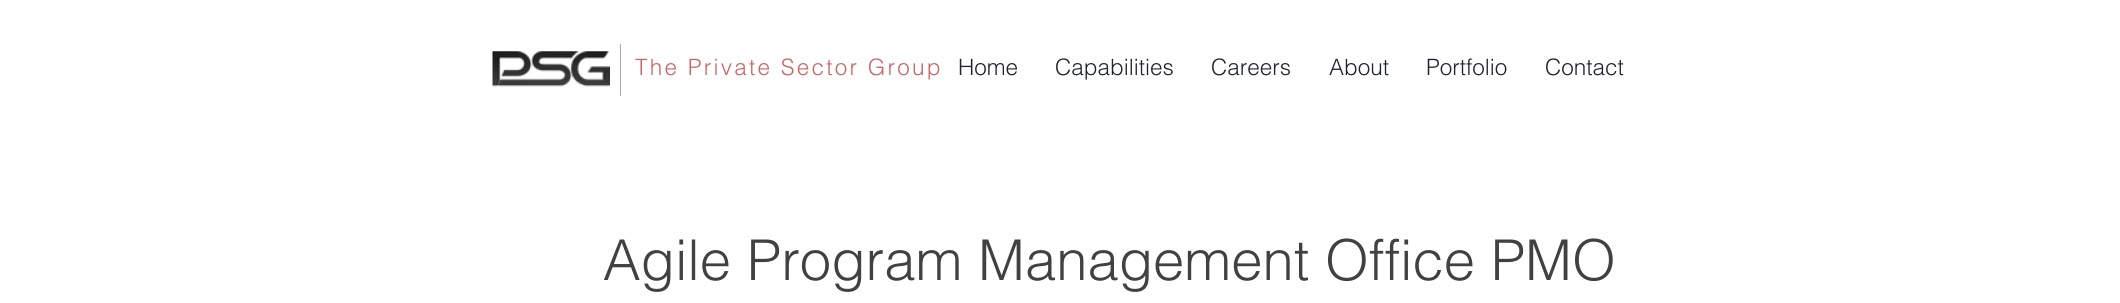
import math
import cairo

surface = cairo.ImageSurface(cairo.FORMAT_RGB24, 2120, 303)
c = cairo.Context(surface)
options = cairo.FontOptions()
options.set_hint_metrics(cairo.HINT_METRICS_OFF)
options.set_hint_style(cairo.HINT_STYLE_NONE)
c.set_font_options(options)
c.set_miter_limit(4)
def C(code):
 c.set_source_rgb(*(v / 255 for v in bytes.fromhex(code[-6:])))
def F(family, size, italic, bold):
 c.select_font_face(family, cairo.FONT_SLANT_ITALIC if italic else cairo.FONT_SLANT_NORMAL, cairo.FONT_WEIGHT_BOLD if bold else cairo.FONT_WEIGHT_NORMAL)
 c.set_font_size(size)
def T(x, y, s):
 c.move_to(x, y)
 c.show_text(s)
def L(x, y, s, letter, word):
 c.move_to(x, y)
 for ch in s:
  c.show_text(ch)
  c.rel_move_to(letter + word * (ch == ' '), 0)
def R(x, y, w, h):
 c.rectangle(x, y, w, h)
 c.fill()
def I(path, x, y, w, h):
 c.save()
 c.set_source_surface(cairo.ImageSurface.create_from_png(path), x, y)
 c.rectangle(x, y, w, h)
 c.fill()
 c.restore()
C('ffffff')
c.paint()
I('1.png',492,51,118,36)
C('a8a8a7')
R(620,44,1,52)
F('helvetica Light',22.5,0,0)
C('c86567')
L(635,75,'The Private Sector Group',2.25,0)
C('1e242e')
T(958,75,'Home')
T(1055,75,'Capabilities')
T(1211,75,'Careers')
T(1329,75,'About')
T(1426,75,'Portfolio')
T(1545,75,'Contact')
F('helvetica Light',56.25,0,0)
C('414141')
T(603,280,'Agile Program Management Office PMO')
surface.write_to_png('o.png')
